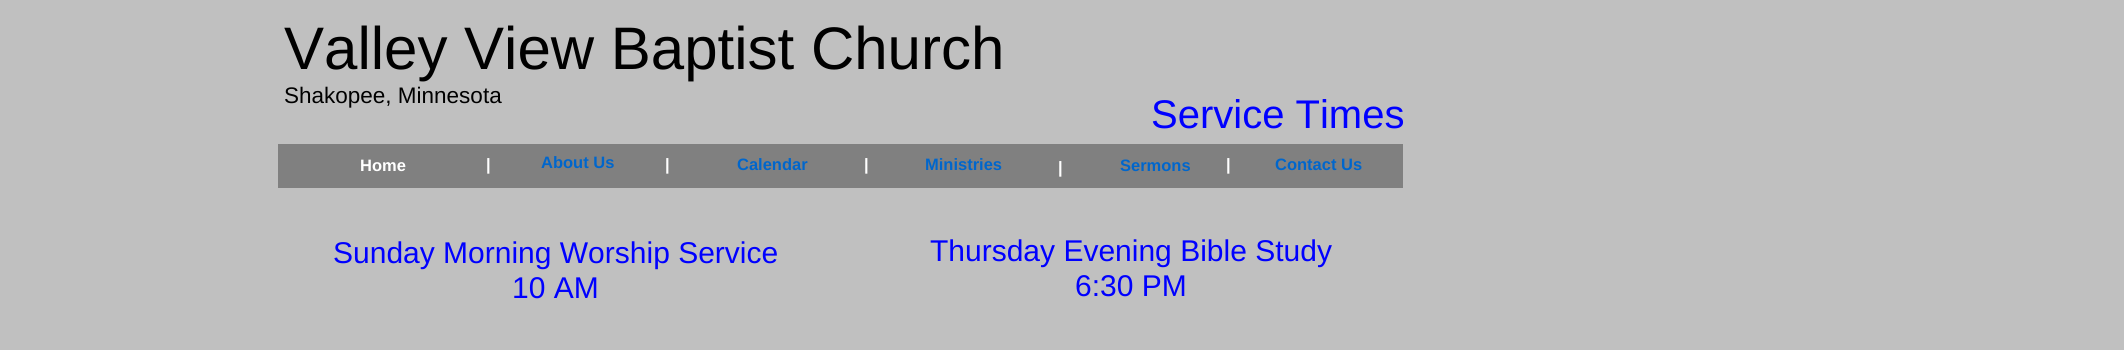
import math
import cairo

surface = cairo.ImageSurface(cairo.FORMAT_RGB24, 2124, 350)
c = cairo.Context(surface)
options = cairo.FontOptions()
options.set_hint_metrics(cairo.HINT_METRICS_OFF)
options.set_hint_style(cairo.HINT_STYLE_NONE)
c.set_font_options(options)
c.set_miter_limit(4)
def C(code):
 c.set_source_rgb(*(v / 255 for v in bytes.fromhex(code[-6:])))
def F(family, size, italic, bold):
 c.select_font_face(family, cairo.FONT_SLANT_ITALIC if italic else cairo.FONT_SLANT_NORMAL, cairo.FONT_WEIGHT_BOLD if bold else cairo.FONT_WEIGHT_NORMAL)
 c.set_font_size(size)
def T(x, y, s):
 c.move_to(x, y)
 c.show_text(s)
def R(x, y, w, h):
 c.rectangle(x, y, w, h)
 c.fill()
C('c0c0c0')
c.paint()
F('Liberation Sans',60,0,0)
C('000000')
T(284,69,'Valley View Baptist Church')
F('Liberation Sans',22.5,0,0)
T(284,103,'Shakopee, Minnesota')
F('Liberation Sans',40,0,0)
C('0000ff')
T(1151,128,'Service Times')
C('808080')
R(278,144,1125,44)
F('Liberation Sans',16.5,0,1)
C('ffffff')
T(360,171,'Home')
T(486,170,'|')
C('0066cc')
T(541,168,'About Us')
C('ffffff')
T(665,170,'|')
C('0066cc')
T(737,170,'Calendar')
C('ffffff')
T(864,170,'|')
C('0066cc')
T(925,170,'Ministries')
C('ffffff')
T(1058,173,'|')
C('0066cc')
T(1120,171,'Sermons')
C('ffffff')
T(1226,170,'|')
C('0066cc')
T(1275,170,'Contact Us')
F('Liberation Sans',30,0,0)
C('0000ff')
T(333,263,'Sunday Morning Worship Service')
T(512,298,'10 AM')
T(930,261,'Thursday Evening Bible Study')
T(1075,296,'6:30 PM')
surface.write_to_png('o.png')
